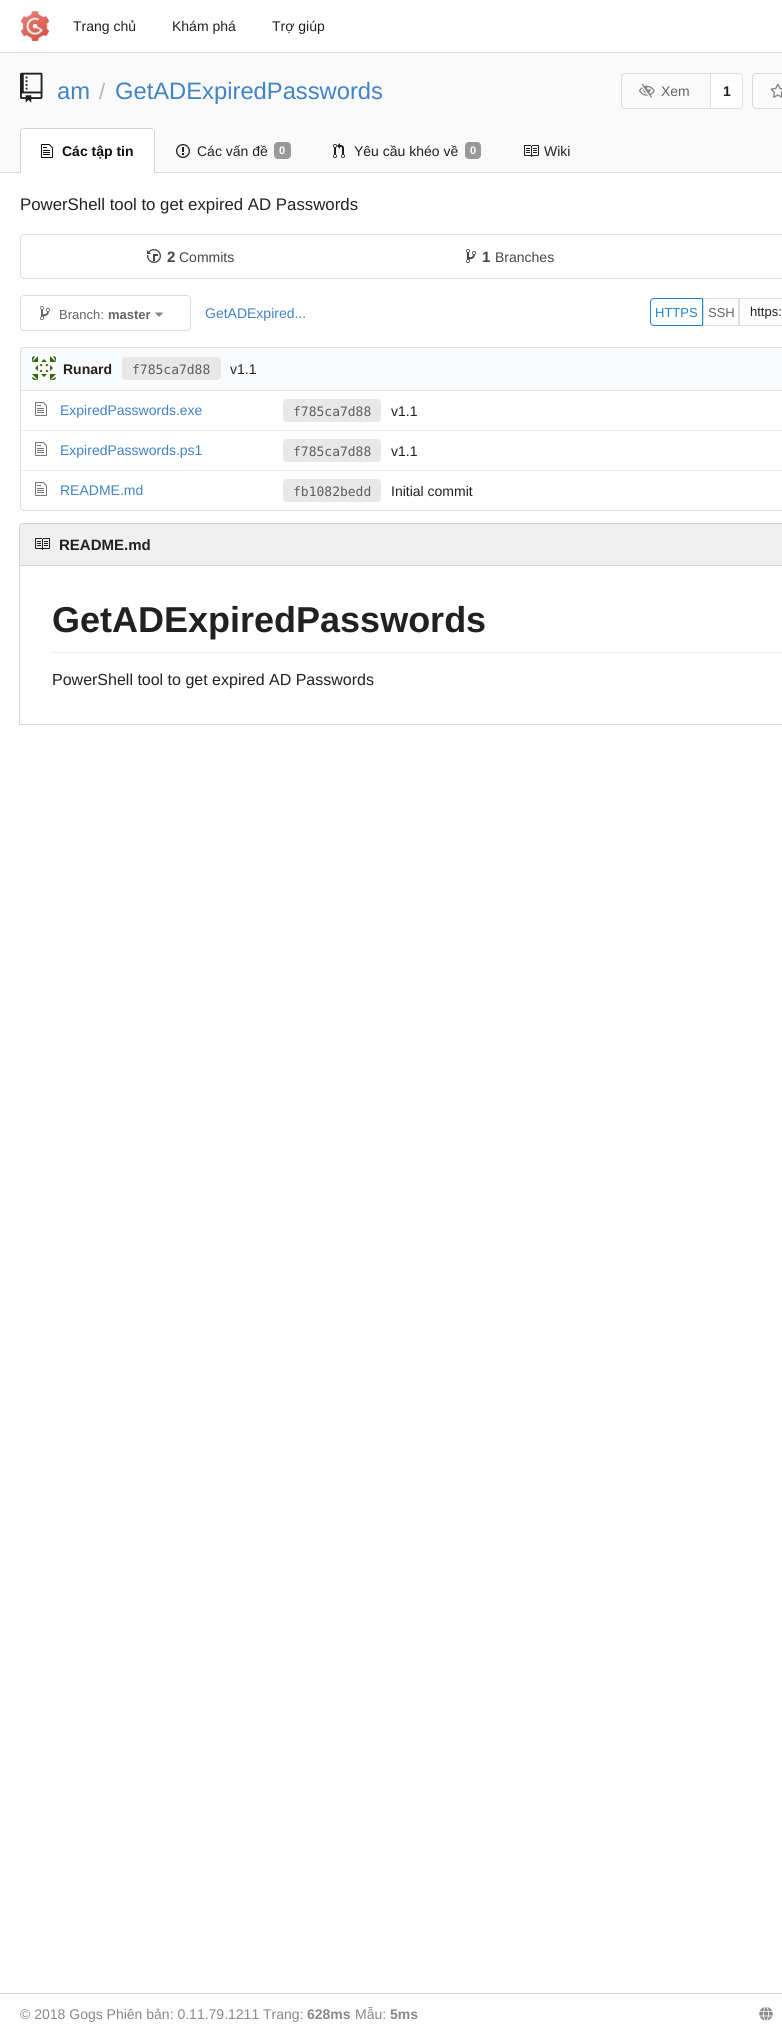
import math
import cairo

surface = cairo.ImageSurface(cairo.FORMAT_RGB24, 782, 2033)
c = cairo.Context(surface)
options = cairo.FontOptions()
options.set_hint_metrics(cairo.HINT_METRICS_OFF)
options.set_hint_style(cairo.HINT_STYLE_NONE)
c.set_font_options(options)
c.set_miter_limit(4)
def C(code):
 c.set_source_rgb(*(v / 255 for v in bytes.fromhex(code[-6:])))
def F(family, size, italic, bold):
 c.select_font_face(family, cairo.FONT_SLANT_ITALIC if italic else cairo.FONT_SLANT_NORMAL, cairo.FONT_WEIGHT_BOLD if bold else cairo.FONT_WEIGHT_NORMAL)
 c.set_font_size(size)
def T(x, y, s):
 c.move_to(x, y)
 c.show_text(s)
def R(x, y, w, h):
 c.rectangle(x, y, w, h)
 c.fill()
def Q(x, y, w, h, r):
 c.new_sub_path()
 for i, (u, v) in enumerate([(x + w - r, y + h - r), (x + r, y + h - r), (x + r, y + r), (x + w - r, y + r)]):
  c.arc(u, v, r, i * math.pi / 2, (i + 1) * math.pi / 2)
 c.close_path()
def I(path, x, y, w, h):
 c.save()
 c.set_source_surface(cairo.ImageSurface.create_from_png(path), x, y)
 c.rectangle(x, y, w, h)
 c.fill()
 c.restore()
C('ffffff')
c.paint()
C('dddddd')
R(0,52,782,1)
I('1.png',21,11,29,30)
F('Liberation Sans',14,0,0)
C('212121')
T(73,31,'Trang chủ')
T(172,31,'Khám phá')
T(272,31,'Trợ giúp')
C('fafafa')
R(0,53,782,119)
I('2.png',20,72,23,31)
F('Liberation Sans',23.75,0,0)
C('4183c4')
T(57,99,'am')
F('Liberation Sans',22,0,0)
C('b4b4b4')
T(99,99,'/')
F('Liberation Sans',23.75,0,0)
C('4183c4')
T(115,99,'GetADExpiredPasswords')
c.new_path()
c.move_to(625,73.5)
c.line_to(710.5,73.5)
c.line_to(710.5,108.5)
c.line_to(625,108.5)
c.curve_to(623,108.5,621.5,107,621.5,105)
c.line_to(621.5,77)
c.curve_to(621.5,75,623,73.5,625,73.5)
c.close_path()
C('dadada')
c.set_line_width(1)
c.stroke()
I('3.png',639,83,16,15)
F('Liberation Sans',14,0,0)
C('646464')
T(661,96,'Xem')
C('ffffff')
c.new_path()
c.move_to(710.5,73.5)
c.line_to(739,73.5)
c.curve_to(741,73.5,742.5,75,742.5,77)
c.line_to(742.5,105)
c.curve_to(742.5,107,741,108.5,739,108.5)
c.line_to(710.5,108.5)
c.close_path()
c.fill_preserve()
C('dedede')
c.stroke()
F('Liberation Sans',14,0,1)
C('212121')
T(723,96,'1')
c.new_path()
c.move_to(756,73.5)
c.line_to(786.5,73.5)
c.line_to(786.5,108.5)
c.line_to(756,108.5)
c.curve_to(754,108.5,752.5,107,752.5,105)
c.line_to(752.5,77)
c.curve_to(752.5,75,754,73.5,756,73.5)
c.close_path()
C('dadada')
c.stroke()
I('4.png',770,83,12,15)
R(0,172,782,1)
C('ffffff')
c.new_path()
c.move_to(24,128)
c.line_to(151,128)
c.curve_to(153,128,155,130,155,132)
c.line_to(155,173)
c.line_to(20,173)
c.line_to(20,132)
c.curve_to(20,130,22,128,24,128)
c.close_path()
c.fill()
C('d4d4d5')
c.set_fill_rule(cairo.FILL_RULE_EVEN_ODD)
c.new_path()
c.move_to(24,128)
c.line_to(151,128)
c.curve_to(153,128,155,130,155,132)
c.line_to(155,173)
c.line_to(20,173)
c.line_to(20,132)
c.curve_to(20,130,22,128,24,128)
c.close_path()
c.move_to(24,129)
c.line_to(151,129)
c.curve_to(153,129,154,130,154,132)
c.line_to(154,173)
c.line_to(21,173)
c.line_to(21,132)
c.curve_to(21,130,22,129,24,129)
c.close_path()
c.fill()
I('5.png',41,144,12,14)
C('0d0d0d')
T(62,156,'Các tập tin')
I('6.png',176,144,14,14)
F('Liberation Sans',14,0,0)
C('212121')
T(197,156,'Các vấn đề')
C('999999')
Q(274,142,17,17,4)
c.fill()
F('Liberation Sans',11,0,1)
C('ffffff')
T(279,154,'0')
I('7.png',333,143,12,15)
F('Liberation Sans',14,0,0)
C('212121')
T(354,156,'Yêu cầu khéo về')
C('999999')
Q(465,142,16,17,4)
c.fill()
F('Liberation Sans',11,0,1)
C('ffffff')
T(470,154,'0')
I('8.png',524,145,15,12)
F('Liberation Sans',14,0,0)
C('212121')
T(544,156,'Wiki')
F('Liberation Sans',16.8,0,0)
T(20,210,'PowerShell tool to get expired AD Passwords')
Q(20.5,234.5,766,44,3.5)
C('dedede')
c.stroke()
I('9.png',147,249,14,14)
F('Liberation Sans',15,0,1)
C('444444')
T(167,262,'2')
F('Liberation Sans',14,0,0)
T(179,262,'Commits')
I('10.png',466,249,10,14)
F('Liberation Sans',15,0,1)
T(482,262,'1')
F('Liberation Sans',14,0,0)
T(495,262,'Branches')
Q(20.5,295.5,170,35,3.5)
C('dedede')
c.stroke()
I('11.png',40,306,10,14)
F('Liberation Sans',13,0,0)
C('646464')
T(59,319,'Branch:')
F('Liberation Sans',13,0,1)
T(108,319,'master')
I('12.png',155,312,8,5)
F('Liberation Sans',14,0,0)
C('4183c4')
T(205,318,'GetADExpired...')
c.new_path()
c.move_to(654,298.5)
c.line_to(702.5,298.5)
c.line_to(702.5,325.5)
c.line_to(654,325.5)
c.curve_to(652,325.5,650.5,324,650.5,322)
c.line_to(650.5,302)
c.curve_to(650.5,300,652,298.5,654,298.5)
c.close_path()
C('2185d0')
c.stroke()
F('Liberation Sans',13,0,0)
T(655,317,'HTTPS')
c.rectangle(703.5,298.5,35,27)
C('dedede')
c.stroke()
C('646464')
T(708,317,'SSH')
C('dedede')
c.set_fill_rule(cairo.FILL_RULE_WINDING)
c.new_path()
c.move_to(739,298)
c.line_to(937,298)
c.line_to(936,299)
c.line_to(740,299)
c.close_path()
c.move_to(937,326)
c.line_to(739,326)
c.line_to(740,325)
c.line_to(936,325)
c.close_path()
c.fill()
c.set_source_rgba(0.133,0.141,0.149,0.15)
c.new_path()
c.move_to(739,326)
c.line_to(739,298)
c.line_to(740,299)
c.line_to(740,325)
c.close_path()
c.fill()
C('212121')
T(750,316,'https:')
Q(20.5,347.5,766,163,3.5)
C('dedede')
c.stroke()
C('f9fafb')
c.new_path()
c.move_to(25,348)
c.line_to(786,348)
c.line_to(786,391)
c.line_to(21,391)
c.line_to(21,352)
c.curve_to(21,350,23,348,25,348)
c.close_path()
c.fill()
C('e3e5e6')
R(21,390,761,1)
I('13.png',32,356,24,24)
F('Liberation Sans',14,0,1)
C('212121')
T(63,374,'Runard')
C('e8e8e8')
Q(122,357,99,23,4)
c.fill()
F('DejaVu Sans Mono',13,0,0)
C('5d5d5d')
T(132,374,'f785ca7d88')
F('Liberation Sans',14,0,0)
C('212121')
T(230,374,'v1.1')
I('14.png',35,402,12,14)
C('4183c4')
T(60,415,'ExpiredPasswords.exe')
C('e8e8e8')
Q(283,399,98,23,4)
c.fill()
F('DejaVu Sans Mono',13,0,0)
C('5d5d5d')
T(293,416,'f785ca7d88')
F('Liberation Sans',14,0,0)
C('212121')
T(391,416,'v1.1')
C('e9e9e9')
R(21,430,761,1)
I('14.png',35,442,12,14)
C('4183c4')
T(60,455,'ExpiredPasswords.ps1')
C('e8e8e8')
Q(283,439,98,23,4)
c.fill()
F('DejaVu Sans Mono',13,0,0)
C('5d5d5d')
T(293,456,'f785ca7d88')
F('Liberation Sans',14,0,0)
C('212121')
T(391,456,'v1.1')
C('e9e9e9')
R(21,470,761,1)
I('14.png',35,482,12,14)
C('4183c4')
T(60,495,'README.md')
C('e8e8e8')
Q(283,479,98,23,4)
c.fill()
F('DejaVu Sans Mono',13,0,0)
C('5d5d5d')
T(293,496,'fb1082bedd')
F('Liberation Sans',14,0,0)
C('212121')
T(391,496,'Initial commit')
C('f0f0f0')
c.new_path()
c.move_to(23,523.5)
c.line_to(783,523.5)
c.curve_to(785,523.5,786.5,525,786.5,527)
c.line_to(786.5,565.5)
c.line_to(19.5,565.5)
c.line_to(19.5,527)
c.curve_to(19.5,525,21,523.5,23,523.5)
c.close_path()
c.fill_preserve()
C('d4d4d5')
c.stroke()
I('15.png',35,538,15,12)
F('Liberation Sans',15,0,1)
C('212121')
T(59,550,'README.md')
C('d4d4d5')
R(19,724,763,1)
R(19,566,1,159)
C('eeeeee')
R(52,652,730,1)
F('Liberation Sans',36,0,1)
C('212121')
T(52,632,'GetADExpiredPasswords')
F('Liberation Sans',16,0,0)
T(52,685,'PowerShell tool to get expired AD Passwords')
C('d6d6d6')
R(0,1993,782,1)
F('Liberation Sans',14,0,0)
C('888888')
T(20,2019,'© 2018 Gogs Phiên bản: 0.11.79.1211 Trang:')
F('Liberation Sans',14,0,1)
T(307,2019,'628ms')
F('Liberation Sans',14,0,0)
T(355,2019,'Mẫu:')
F('Liberation Sans',14,0,1)
T(390,2019,'5ms')
I('16.png',759,2007,14,14)
surface.write_to_png('o.png')
